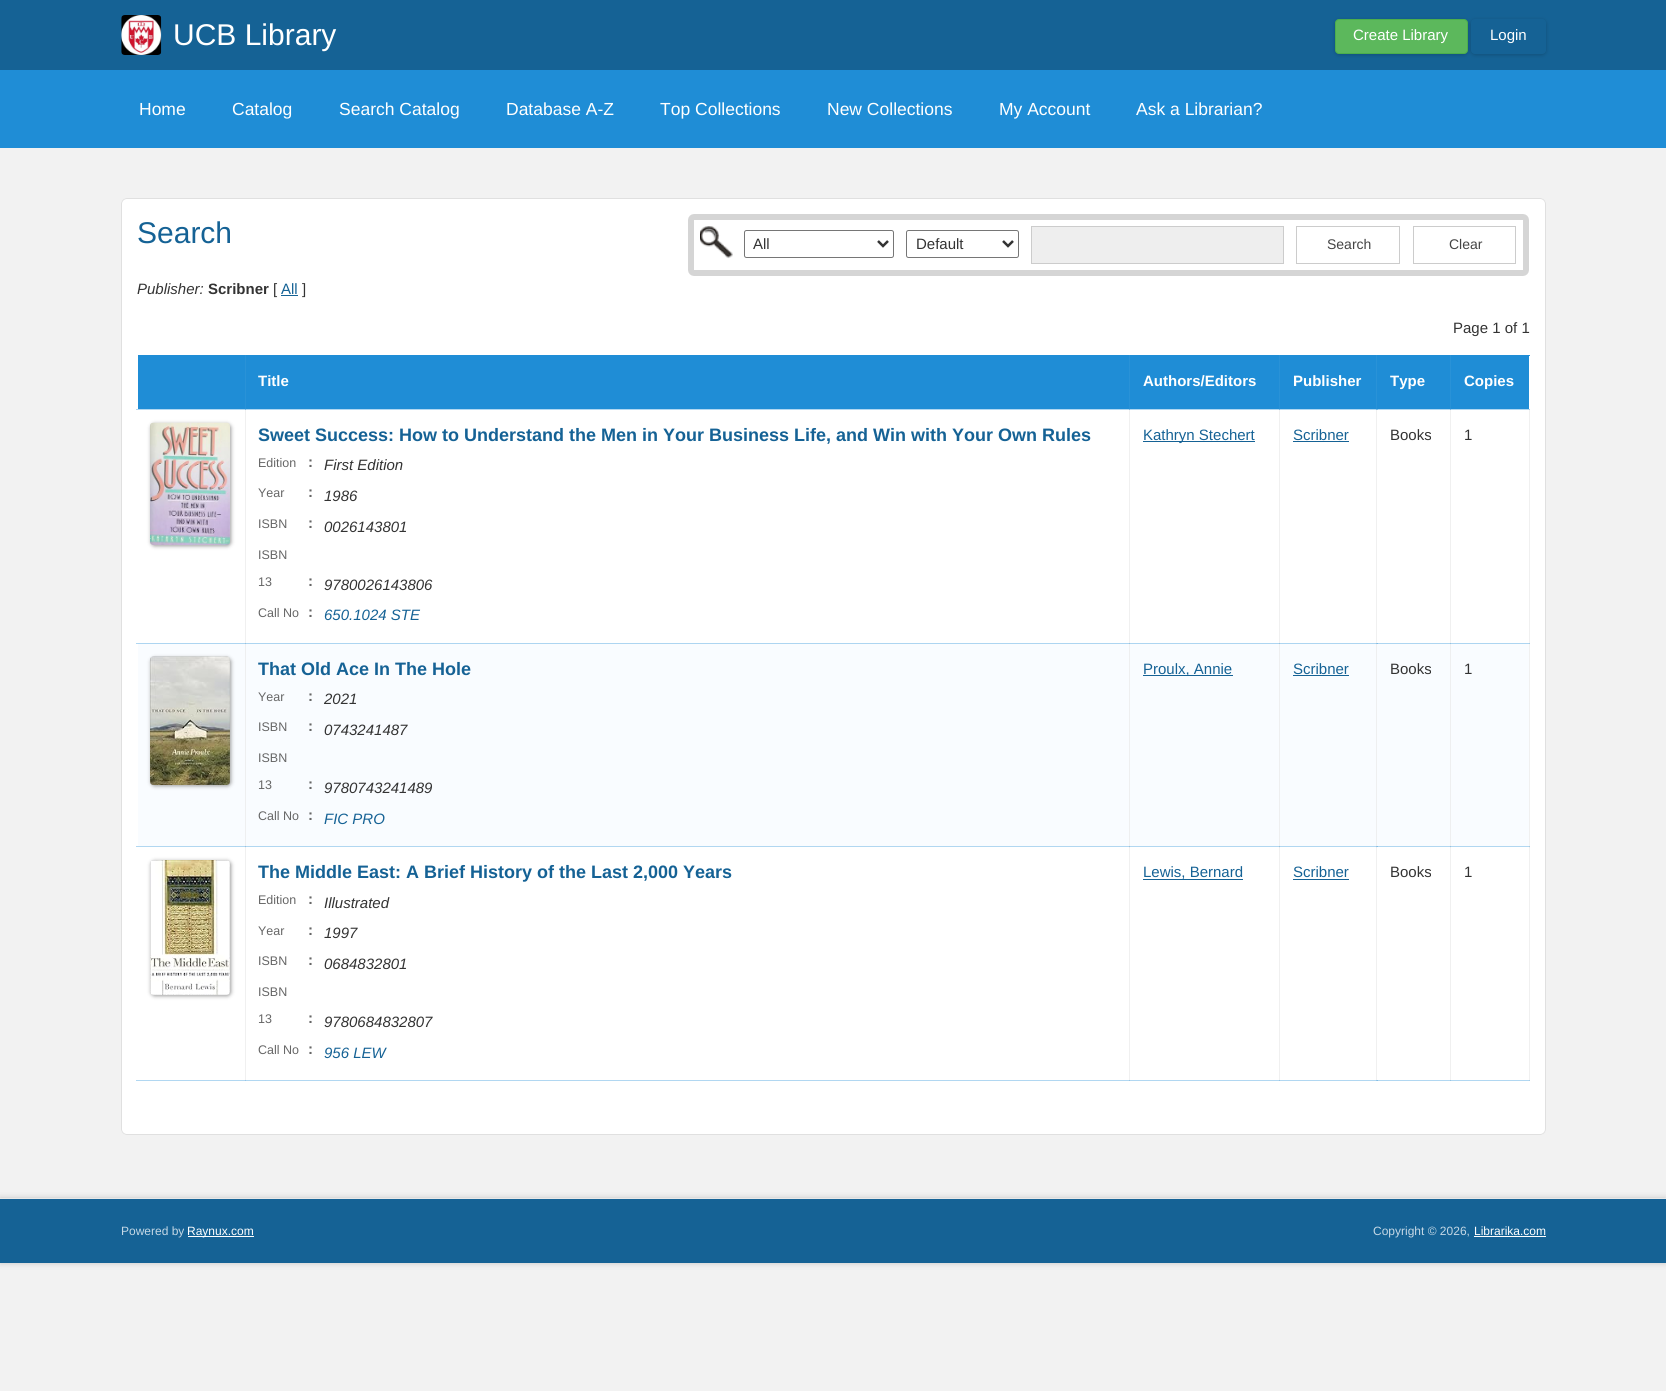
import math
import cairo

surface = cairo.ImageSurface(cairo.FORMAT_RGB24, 1666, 1391)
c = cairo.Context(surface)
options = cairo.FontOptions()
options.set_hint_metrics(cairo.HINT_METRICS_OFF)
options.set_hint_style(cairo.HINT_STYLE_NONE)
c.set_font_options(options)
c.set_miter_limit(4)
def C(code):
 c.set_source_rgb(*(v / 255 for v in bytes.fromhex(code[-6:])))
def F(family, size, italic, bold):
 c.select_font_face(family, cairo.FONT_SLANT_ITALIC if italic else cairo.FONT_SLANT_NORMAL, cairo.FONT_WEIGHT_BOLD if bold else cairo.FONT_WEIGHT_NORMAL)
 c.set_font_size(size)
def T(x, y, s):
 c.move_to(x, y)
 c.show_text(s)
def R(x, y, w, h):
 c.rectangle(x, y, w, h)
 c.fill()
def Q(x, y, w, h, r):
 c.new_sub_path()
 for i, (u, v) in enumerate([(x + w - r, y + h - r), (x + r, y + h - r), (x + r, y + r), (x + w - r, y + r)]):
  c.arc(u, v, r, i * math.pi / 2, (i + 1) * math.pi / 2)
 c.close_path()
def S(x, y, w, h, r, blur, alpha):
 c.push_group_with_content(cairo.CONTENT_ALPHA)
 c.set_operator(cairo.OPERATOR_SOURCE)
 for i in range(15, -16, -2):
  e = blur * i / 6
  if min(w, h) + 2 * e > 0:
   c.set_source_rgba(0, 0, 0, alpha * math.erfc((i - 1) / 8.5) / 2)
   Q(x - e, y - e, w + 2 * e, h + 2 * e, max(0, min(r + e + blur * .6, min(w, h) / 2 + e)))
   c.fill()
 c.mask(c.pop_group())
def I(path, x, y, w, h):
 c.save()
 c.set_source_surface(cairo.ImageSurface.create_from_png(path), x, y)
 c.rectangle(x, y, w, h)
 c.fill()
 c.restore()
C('f2f2f2')
c.paint()
C('156295')
R(0,0,1666,70)
I('1.png',121,15,41,40)
F('Liberation Sans',30,0,0)
C('ffffff')
T(173,45,'UCB Library')
C('000000')
S(1335,20,133,35,4,2,.2)
C('5cb85c')
Q(1335.5,19.5,132,34,3.5)
c.fill_preserve()
C('4cae4c')
c.set_line_width(1)
c.stroke()
F('Liberation Sans',15,0,0)
C('ffffff')
T(1353,40,'Create Library')
C('000000')
S(1471,20,75,35,4,2,.2)
C('156295')
Q(1471.5,19.5,74,34,3.5)
c.fill_preserve()
c.stroke()
C('ffffff')
T(1490,40,'Login')
C('1f8dd6')
R(0,70,1666,78)
F('Liberation Sans',17.5,0,0)
C('ffffff')
T(139,115,'Home')
T(232,115,'Catalog')
T(339,115,'Search Catalog')
T(506,115,'Database A-Z')
T(660,115,'Top Collections')
T(827,115,'New Collections')
T(999,115,'My Account')
T(1136,115,'Ask a Librarian?')
Q(121,198,1425,937,6)
c.fill()
C('b1d7f1')
R(136,409,1394,1)
C('7ebde8')
R(1376,409,2,1)
C('fefefe')
R(1529,409,1,1)
C('b1d7f1')
R(136,643,2,1)
C('f0f0f0')
R(245,409,1,235)
C('79b7e1')
R(245,409,1,1)
C('f0f0f0')
R(1129,409,1,235)
C('79b7e1')
R(1129,409,1,1)
C('f0f0f0')
R(1279,409,1,235)
C('79b7e1')
R(1279,409,1,1)
C('f0f0f0')
R(1376,409,1,235)
C('79b7e1')
R(1376,409,1,1)
C('f0f0f0')
R(1450,409,1,235)
C('79b7e1')
R(1450,409,1,1)
C('f0f0f0')
R(1529,409,1,235)
C('a7cde7')
R(1529,409,1,1)
C('b1d7f1')
R(136,846,1394,1)
C('7ebde8')
R(1376,846,2,1)
C('f0f0f0')
R(1529,643,1,205)
C('a4cae4')
R(1529,643,1,1)
C('b1d7f1')
R(136,1080,110,1)
C('f0f0f0')
R(245,846,1,235)
C('ebebeb')
R(245,846,1,2)
C('93c2e2')
R(245,846,1,1)
C('b1d7f1')
R(245,1080,885,1)
C('95c4e4')
R(245,1080,1,1)
C('f0f0f0')
R(1129,846,1,235)
C('ebebeb')
R(1129,846,1,2)
C('93c2e2')
R(1129,846,1,1)
C('b1d7f1')
R(1129,1080,151,1)
C('95c4e4')
R(1129,1080,1,1)
C('f0f0f0')
R(1279,846,1,235)
C('ebebeb')
R(1279,846,1,2)
C('93c2e2')
R(1279,846,1,1)
C('b1d7f1')
R(1279,1080,99,1)
C('95c4e4')
R(1279,1080,1,1)
C('f0f0f0')
R(1376,846,1,235)
C('ebebeb')
R(1376,846,1,2)
C('93c2e2')
R(1376,846,1,1)
C('b1d7f1')
R(1376,1080,75,1)
C('7ebde8')
R(1376,1080,2,1)
C('95c4e4')
R(1376,1080,1,1)
C('f0f0f0')
R(1450,846,1,235)
C('ebebeb')
R(1450,846,1,2)
C('93c2e2')
R(1450,846,1,1)
C('b1d7f1')
R(1450,1080,80,1)
C('95c4e4')
R(1450,1080,1,1)
Q(121.5,198.5,1424,936,5.5)
C('e0e0e0')
c.stroke()
F('Liberation Sans',30,0,0)
C('156295')
T(137,243,'Search')
Q(691,217,835,56,3)
C('d5d5d5')
c.set_line_width(6)
c.stroke()
I('2.png',700,226,33,33)
Q(744.5,230.5,149,27,2)
C('767676')
c.set_line_width(1)
c.stroke()
c.new_path()
c.move_to(878,241)
c.line_to(883,246)
c.line_to(888,241)
C('333333')
c.set_line_width(2.5)
c.stroke()
F('Liberation Sans',15,0,0)
T(753,249,'All')
Q(906.5,230.5,112,27,2)
C('767676')
c.set_line_width(1)
c.stroke()
c.new_path()
c.move_to(1003,241)
c.line_to(1008,246)
c.line_to(1013,241)
C('333333')
c.set_line_width(2.5)
c.stroke()
T(916,249,'Default')
C('eeeeee')
c.rectangle(1031.5,226.5,252,37)
c.fill_preserve()
C('cccccc')
c.set_line_width(1)
c.stroke()
c.rectangle(1296.5,226.5,103,37)
c.stroke()
F('Liberation Sans',14,0,0)
C('444444')
T(1327,249,'Search')
c.rectangle(1413.5,226.5,102,37)
C('cccccc')
c.stroke()
C('444444')
T(1449,249,'Clear')
F('Liberation Sans',15,1,0)
C('333333')
T(137,294,'Publisher:')
F('Liberation Sans',15,0,1)
T(208,294,'Scribner')
F('Liberation Sans',15,0,0)
T(273,294,'[')
C('156295')
T(281,294,'All')
R(281,295,17,1)
C('333333')
T(302,294,']')
T(1453,333,'Page 1 of 1')
C('1f8dd6')
R(138,355,1392,1)
C('2992d7')
R(245,355,1,1)
R(1129,355,1,1)
R(1279,355,1,1)
R(1376,355,1,1)
R(1450,355,1,1)
R(1529,355,1,1)
C('1f8dd6')
R(138,356,107,53)
R(246,356,883,53)
C('2992d7')
R(245,356,1,53)
R(1129,356,1,53)
F('Liberation Sans',15,0,1)
C('ffffff')
T(258,386,'Title')
C('1f8dd6')
R(1130,356,149,53)
C('2992d7')
R(1279,356,1,53)
C('ffffff')
T(1143,386,'Authors/Editors')
C('1f8dd6')
R(1280,356,96,53)
C('ffffff')
T(1293,386,'Publisher')
C('1f8dd6')
R(1377,356,73,53)
C('2992d7')
R(1376,356,1,53)
C('ffffff')
T(1390,386,'Type')
C('1f8dd6')
R(1451,356,78,53)
C('2992d7')
R(1450,356,1,53)
C('ffffff')
T(1464,386,'Copies')
C('999999')
S(151,424,80,122,4,2,1)
I('3.png',150,422,80,123)
F('Liberation Sans',18,0,1)
C('156295')
T(258,441,'Sweet Success: How to Understand the Men in Your Business Life, and Win with Your Own Rules')
F('Liberation Sans',12.5,0,0)
C('666666')
T(258,467,'Edition')
F('Liberation Sans',15,0,1)
T(308,467,':')
F('Liberation Sans',15,1,0)
C('333333')
T(324,470,'First Edition')
F('Liberation Sans',12.5,0,0)
C('666666')
T(258,497,'Year')
F('Liberation Sans',15,0,1)
T(308,497,':')
F('Liberation Sans',15,1,0)
C('333333')
T(324,501,'1986')
F('Liberation Sans',12.5,0,0)
C('666666')
T(258,528,'ISBN')
F('Liberation Sans',15,0,1)
T(308,528,':')
F('Liberation Sans',15,1,0)
C('333333')
T(324,532,'0026143801')
F('Liberation Sans',12.5,0,0)
C('666666')
T(258,559,'ISBN')
T(258,586,'13')
F('Liberation Sans',15,0,1)
T(308,586,':')
F('Liberation Sans',15,1,0)
C('333333')
T(324,590,'9780026143806')
F('Liberation Sans',12.5,0,0)
C('666666')
T(258,617,'Call No')
F('Liberation Sans',15,0,1)
T(308,617,':')
F('Liberation Sans',15,1,0)
C('156295')
T(324,620,'650.1024 STE')
R(1143,441,112,1)
F('Liberation Sans',15,0,0)
T(1143,440,'Kathryn Stechert')
T(1293,440,'Scribner')
R(1293,441,56,1)
C('333333')
T(1390,440,'Books')
T(1464,440,'1')
C('f9fcff')
R(138,644,1391,202)
C('add5f1')
R(138,643,1391,1)
C('7bbce8')
R(1376,643,2,1)
C('eeeff0')
R(245,643,1,203)
C('93c2e2')
R(245,643,1,1)
C('eeeff0')
R(1129,643,1,203)
C('93c2e2')
R(1129,643,1,1)
C('eeeff0')
R(1279,643,1,203)
C('93c2e2')
R(1279,643,1,1)
C('eeeff0')
R(1376,643,1,203)
C('93c2e2')
R(1376,643,1,1)
C('eeeff0')
R(1450,643,1,203)
C('93c2e2')
R(1450,643,1,1)
C('999999')
S(151,658,80,128,4,2,1)
I('4.png',150,656,80,129)
F('Liberation Sans',18,0,1)
C('156295')
T(258,675,'That Old Ace In The Hole')
F('Liberation Sans',12.5,0,0)
C('666666')
T(258,701,'Year')
F('Liberation Sans',15,0,1)
T(308,701,':')
F('Liberation Sans',15,1,0)
C('333333')
T(324,704,'2021')
F('Liberation Sans',12.5,0,0)
C('666666')
T(258,731,'ISBN')
F('Liberation Sans',15,0,1)
T(308,731,':')
F('Liberation Sans',15,1,0)
C('333333')
T(324,735,'0743241487')
F('Liberation Sans',12.5,0,0)
C('666666')
T(258,762,'ISBN')
T(258,789,'13')
F('Liberation Sans',15,0,1)
T(308,789,':')
F('Liberation Sans',15,1,0)
C('333333')
T(324,793,'9780743241489')
F('Liberation Sans',12.5,0,0)
C('666666')
T(258,820,'Call No')
F('Liberation Sans',15,0,1)
T(308,820,':')
F('Liberation Sans',15,1,0)
C('156295')
T(324,824,'FIC PRO')
R(1143,675,90,1)
F('Liberation Sans',15,0,0)
T(1143,674,'Proulx, Annie')
T(1293,674,'Scribner')
R(1293,675,56,1)
C('333333')
T(1390,674,'Books')
T(1464,674,'1')
C('999999')
S(151,861,80,135,4,2,1)
I('5.png',150,860,80,135)
F('Liberation Sans',18,0,1)
C('156295')
T(258,878,'The Middle East: A Brief History of the Last 2,000 Years')
F('Liberation Sans',12.5,0,0)
C('666666')
T(258,904,'Edition')
F('Liberation Sans',15,0,1)
T(308,904,':')
F('Liberation Sans',15,1,0)
C('333333')
T(324,908,'Illustrated')
F('Liberation Sans',12.5,0,0)
C('666666')
T(258,935,'Year')
F('Liberation Sans',15,0,1)
T(308,935,':')
F('Liberation Sans',15,1,0)
C('333333')
T(324,938,'1997')
F('Liberation Sans',12.5,0,0)
C('666666')
T(258,965,'ISBN')
F('Liberation Sans',15,0,1)
T(308,965,':')
F('Liberation Sans',15,1,0)
C('333333')
T(324,969,'0684832801')
F('Liberation Sans',12.5,0,0)
C('666666')
T(258,996,'ISBN')
T(258,1023,'13')
F('Liberation Sans',15,0,1)
T(308,1023,':')
F('Liberation Sans',15,1,0)
C('333333')
T(324,1027,'9780684832807')
F('Liberation Sans',12.5,0,0)
C('666666')
T(258,1054,'Call No')
F('Liberation Sans',15,0,1)
T(308,1054,':')
F('Liberation Sans',15,1,0)
C('156295')
T(324,1058,'956 LEW')
F('Liberation Sans',15,0,0)
T(1143,877,'Lewis, Bernard')
R(1143,879,100,1)
T(1293,877,'Scribner')
R(1293,879,56,1)
C('333333')
T(1390,877,'Books')
C('f0f0f0')
R(1529,846,1,235)
C('ebebeb')
R(1529,846,1,2)
C('a4cae4')
R(1529,846,1,1)
C('a7cde7')
R(1529,1080,1,1)
C('333333')
T(1464,877,'1')
C('000000')
S(0,1198,1666,65,0,3,.2)
C('156295')
R(0,1199,1666,64)
C('e8e8e8')
R(0,1198,1666,1)
F('Liberation Sans',12,0,0)
C('c5d8e5')
T(121,1235,'Powered by')
C('ffffff')
R(188,1236,66,1)
T(187,1235,'Raynux.com')
C('c5d8e5')
T(1373,1235,'Copyright © 2026,')
C('ffffff')
T(1474,1235,'Librarika.com')
R(1474,1236,72,1)
surface.write_to_png('o.png')
